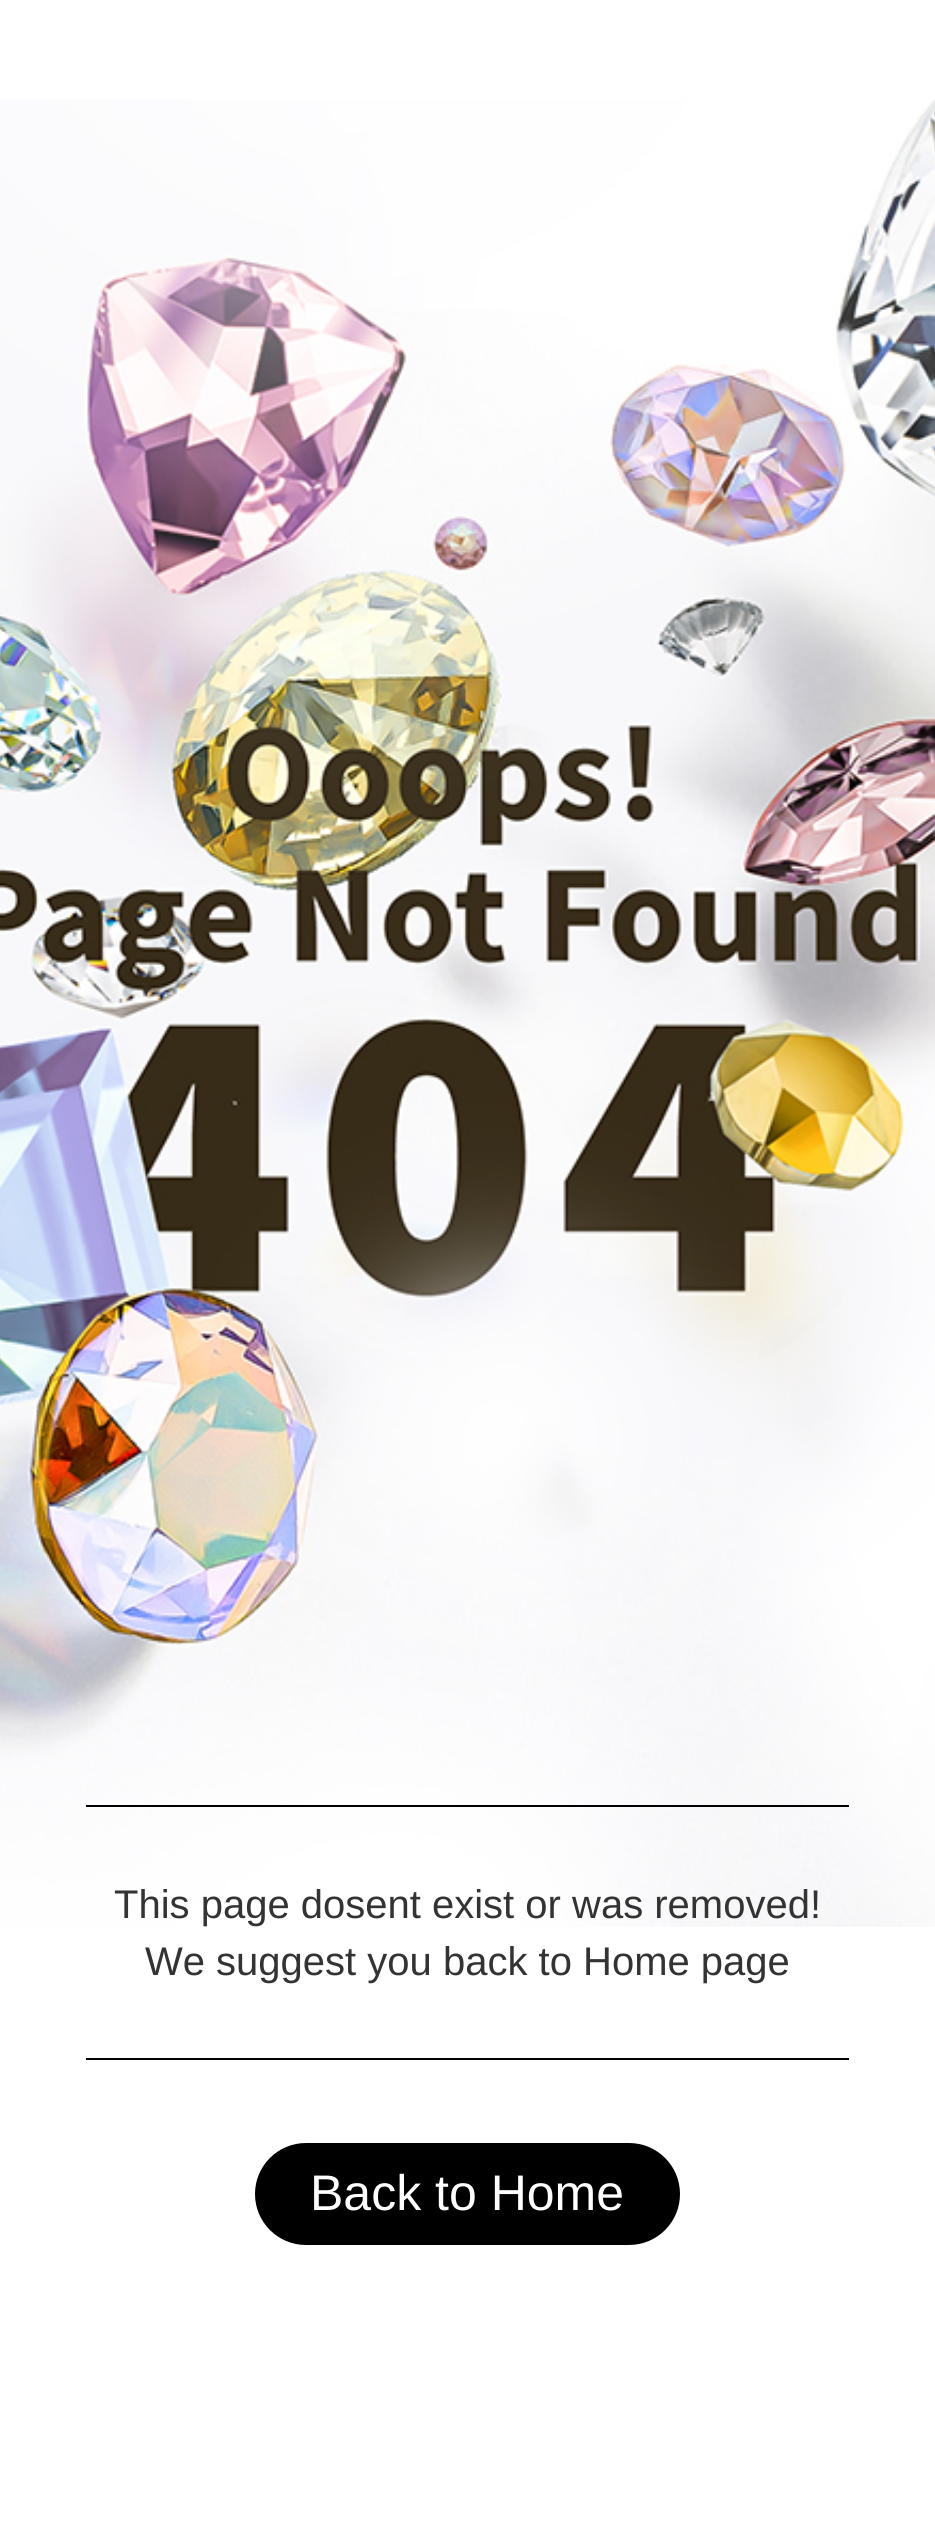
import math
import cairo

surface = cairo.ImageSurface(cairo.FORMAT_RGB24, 935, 2522)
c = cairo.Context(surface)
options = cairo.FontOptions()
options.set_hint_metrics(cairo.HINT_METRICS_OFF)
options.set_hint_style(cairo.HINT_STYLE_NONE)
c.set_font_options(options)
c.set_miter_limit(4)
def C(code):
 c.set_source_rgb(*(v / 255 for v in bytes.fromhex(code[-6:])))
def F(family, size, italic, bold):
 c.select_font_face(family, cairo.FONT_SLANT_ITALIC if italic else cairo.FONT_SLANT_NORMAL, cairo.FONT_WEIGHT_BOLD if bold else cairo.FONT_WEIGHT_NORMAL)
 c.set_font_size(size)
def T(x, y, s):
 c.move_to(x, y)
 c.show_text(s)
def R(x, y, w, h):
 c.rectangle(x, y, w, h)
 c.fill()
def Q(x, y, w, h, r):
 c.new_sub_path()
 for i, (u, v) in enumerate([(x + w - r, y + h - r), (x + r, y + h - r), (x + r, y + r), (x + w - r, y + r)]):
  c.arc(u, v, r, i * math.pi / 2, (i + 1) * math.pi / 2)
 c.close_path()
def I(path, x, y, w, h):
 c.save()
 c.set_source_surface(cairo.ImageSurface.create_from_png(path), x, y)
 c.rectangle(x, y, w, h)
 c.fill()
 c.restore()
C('ffffff')
c.paint()
I('1.png',0,99,935,1828)
C('000000')
R(86,1805,763,2)
R(86,2058,763,2)
F('Liberation Sans',40,0,0)
C('333333')
T(114,1918,'This page dosent exist or was removed!')
T(145,1975,'We suggest you back to Home page')
C('000000')
Q(255,2143,425,102,51)
c.fill()
F('Liberation Sans',50,0,0)
C('ffffff')
T(310,2210,'Back to Home')
surface.write_to_png('o.png')
